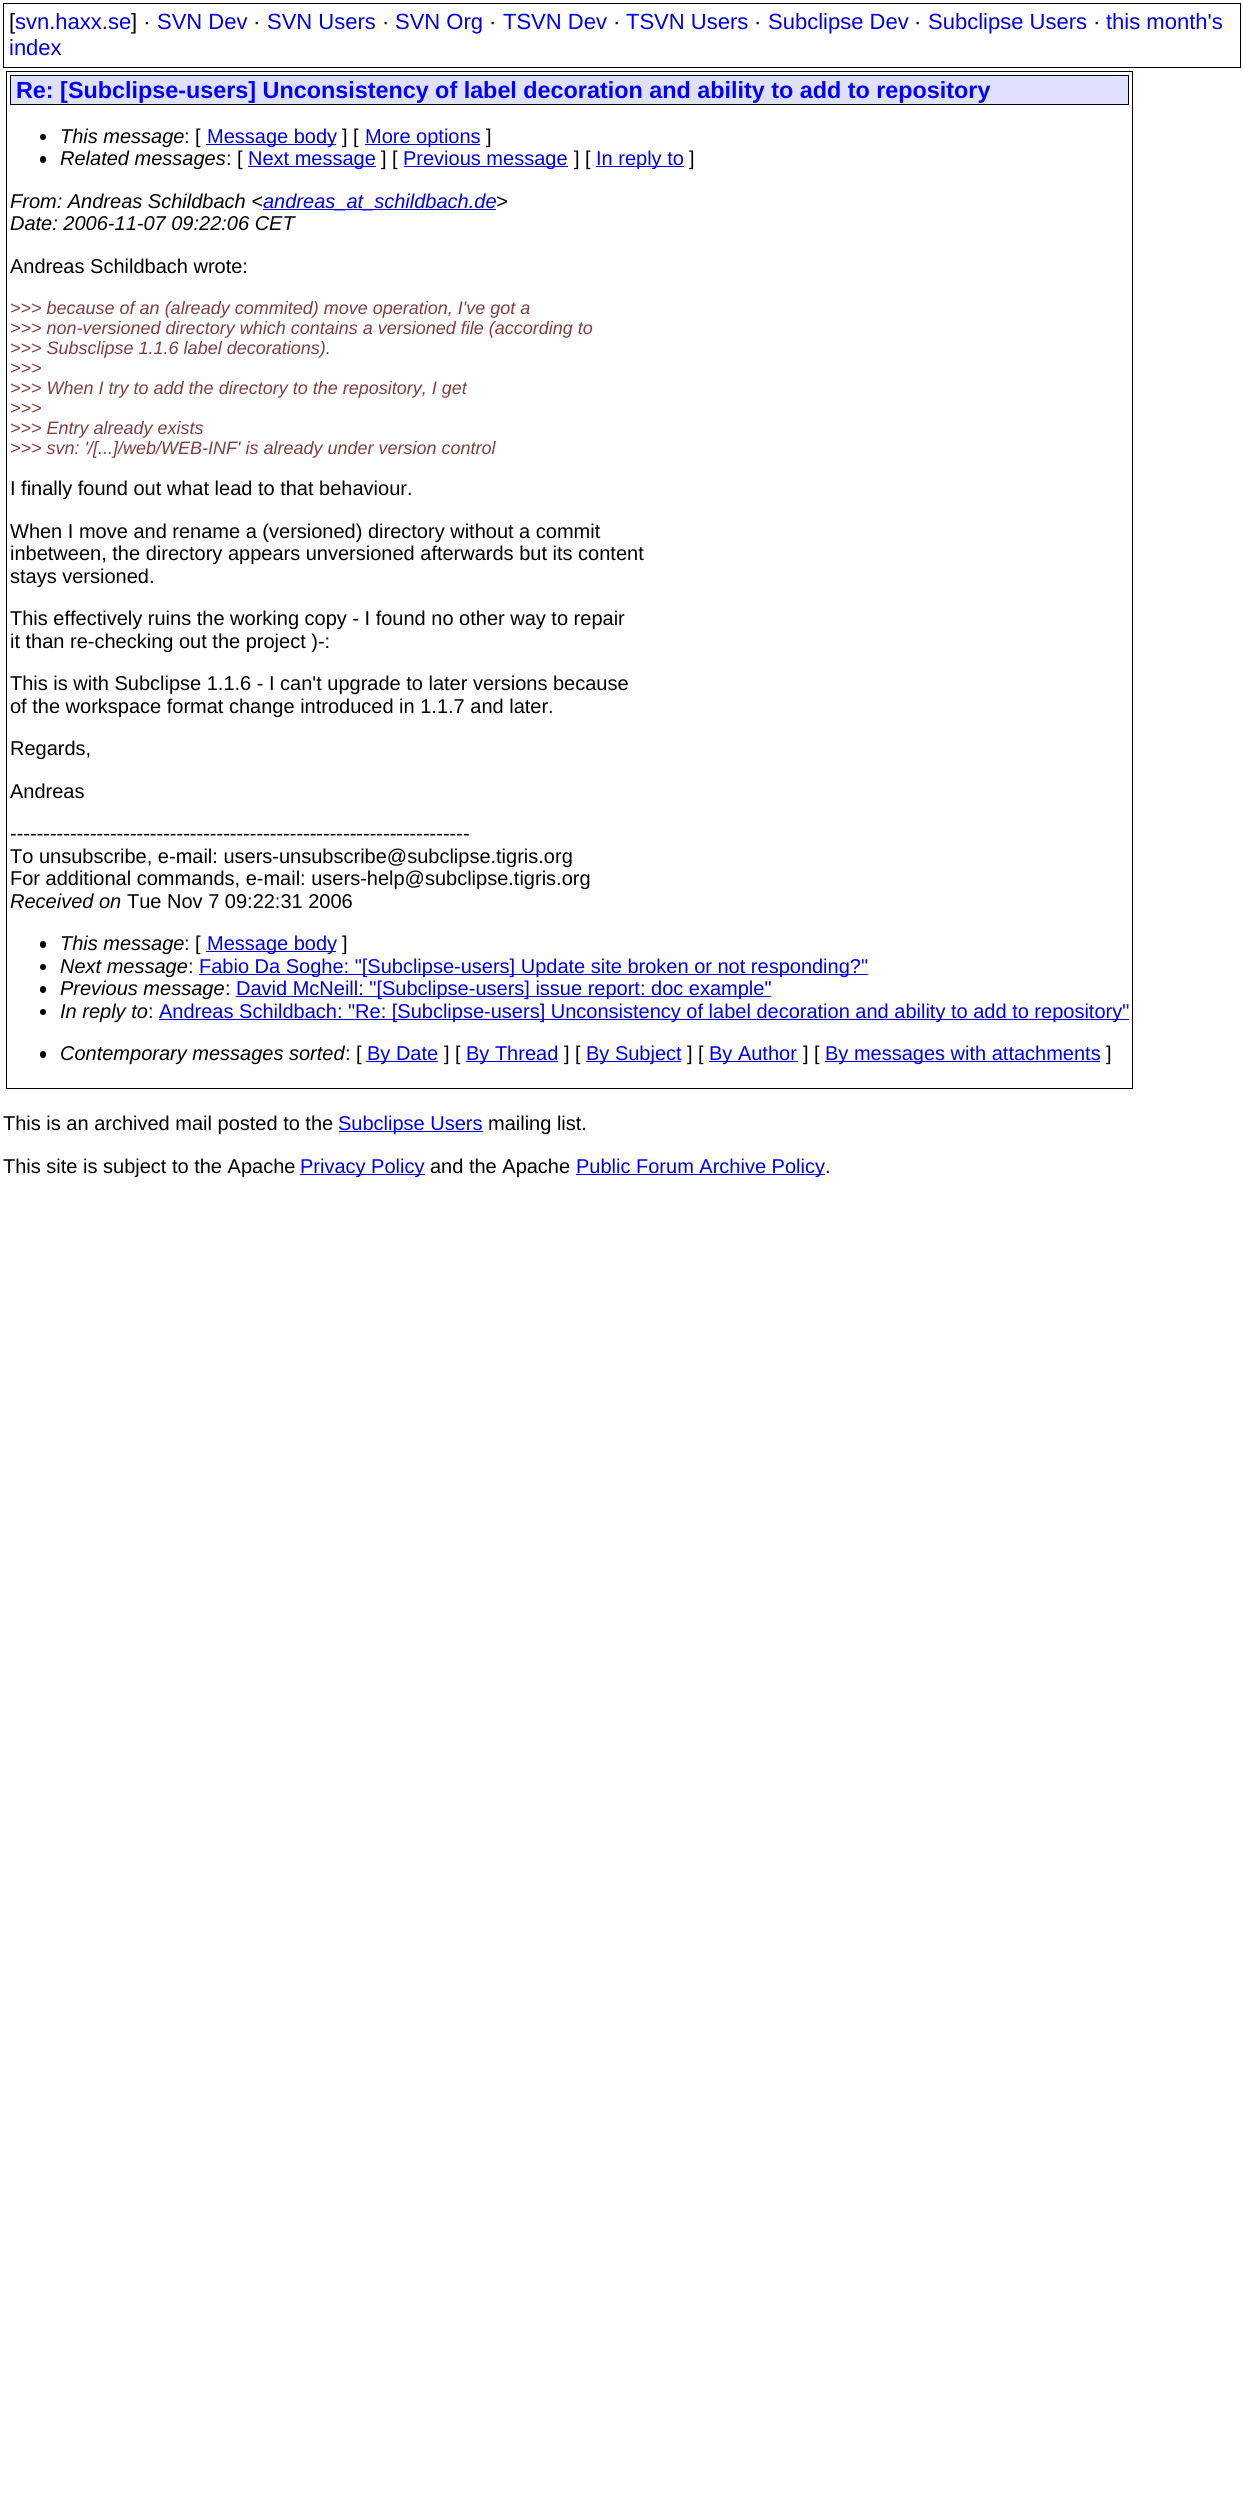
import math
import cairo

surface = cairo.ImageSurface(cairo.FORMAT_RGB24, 1243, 2512)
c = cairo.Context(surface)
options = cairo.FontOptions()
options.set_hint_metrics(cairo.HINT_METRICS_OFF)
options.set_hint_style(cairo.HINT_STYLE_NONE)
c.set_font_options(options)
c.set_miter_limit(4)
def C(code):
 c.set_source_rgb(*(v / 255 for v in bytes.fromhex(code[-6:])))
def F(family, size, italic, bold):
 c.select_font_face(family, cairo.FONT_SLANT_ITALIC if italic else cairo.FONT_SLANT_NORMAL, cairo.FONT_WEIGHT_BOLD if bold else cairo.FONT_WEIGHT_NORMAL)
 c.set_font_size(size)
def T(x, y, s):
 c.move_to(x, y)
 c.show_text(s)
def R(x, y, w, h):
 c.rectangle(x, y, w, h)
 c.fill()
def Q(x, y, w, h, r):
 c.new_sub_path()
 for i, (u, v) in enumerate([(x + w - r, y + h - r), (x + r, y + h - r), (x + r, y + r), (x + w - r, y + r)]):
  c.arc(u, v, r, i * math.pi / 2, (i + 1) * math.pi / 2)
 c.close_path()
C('ffffff')
c.paint()
c.rectangle(3.5,3.5,1237,64)
C('000000')
c.set_line_width(1)
c.stroke()
F('Liberation Sans',22,0,0)
T(9,29,'[')
C('0000ee')
T(15,29,'svn.haxx.se')
C('000000')
T(131,29,'] ·')
C('0000ee')
T(157,29,'SVN Dev')
C('000000')
T(253,29,'·')
C('0000ee')
T(267,29,'SVN Users')
C('000000')
T(382,29,'·')
C('0000ee')
T(395,29,'SVN Org')
C('000000')
T(489,29,'·')
C('0000ee')
T(503,29,'TSVN Dev')
C('000000')
T(613,29,'·')
C('0000ee')
T(626,29,'TSVN Users')
C('000000')
T(754,29,'·')
C('0000ee')
T(768,29,'Subclipse Dev')
C('000000')
T(914,29,'·')
C('0000ee')
T(928,29,'Subclipse Users')
C('000000')
T(1093,29,'·')
C('0000ee')
T(1106,29,'this month\'s')
T(9,55,'index')
c.rectangle(6.5,71.5,1126,1017)
C('000000')
c.stroke()
C('e0e0ff')
c.rectangle(10.5,75.5,1118,29)
c.fill_preserve()
C('000000')
c.stroke()
F('Liberation Sans',23.35,0,1)
C('0000ff')
T(16,98,'Re: [Subclipse-users] Unconsistency of label decoration and ability to add to repository')
C('000000')
c.new_path()
c.arc(43,137,3,0,2 * math.pi)
c.fill()
F('Liberation Sans',20,1,0)
T(60,143,'This message')
F('Liberation Sans',20,0,0)
T(184,143,': [')
C('0000ee')
R(206,144,130,1)
T(207,143,'Message body')
C('000000')
T(342,143,'] [')
C('0000ee')
R(365,144,115,1)
T(365,143,'More options')
C('000000')
T(486,143,']')
Q(40,156,6,7,3)
c.fill()
F('Liberation Sans',20,1,0)
T(60,165,'Related messages')
F('Liberation Sans',20,0,0)
T(226,165,': [')
C('0000ee')
R(248,166,128,1)
T(248,165,'Next message')
C('000000')
T(381,165,'] [')
C('0000ee')
R(404,166,164,1)
T(403,165,'Previous message')
C('000000')
T(574,165,'] [')
C('0000ee')
R(596,166,88,1)
T(596,165,'In reply to')
C('000000')
T(689,165,']')
F('Liberation Sans',20,1,0)
T(10,208,'From: Andreas Schildbach <')
C('0000ee')
R(263,209,233,1)
T(263,208,'andreas_at_schildbach.de')
C('000000')
T(496,208,'>')
T(10,230,'Date: 2006-11-07 09:22:06 CET')
F('Liberation Sans',20,0,0)
T(10,273,'Andreas Schildbach wrote:')
F('Liberation Sans',18,1,0)
C('804040')
T(10,314,'>>> because of an (already commited) move operation, I\'ve got a')
T(10,334,'>>> non-versioned directory which contains a versioned file (according to')
T(10,354,'>>> Subsclipse 1.1.6 label decorations).')
T(10,374,'>>>')
T(10,394,'>>> When I try to add the directory to the repository, I get')
T(10,414,'>>>')
T(10,434,'>>> Entry already exists')
T(10,454,'>>> svn: \'/[...]/web/WEB-INF\' is already under version control')
F('Liberation Sans',20,0,0)
C('000000')
T(10,495,'I finally found out what lead to that behaviour.')
T(10,538,'When I move and rename a (versioned) directory without a commit')
T(10,560,'inbetween, the directory appears unversioned afterwards but its content')
T(10,583,'stays versioned.')
T(10,625,'This effectively ruins the working copy - I found no other way to repair')
T(10,648,'it than re-checking out the project )-:')
T(10,690,'This is with Subclipse 1.1.6 - I can\'t upgrade to later versions because')
T(10,713,'of the workspace format change introduced in 1.1.7 and later.')
T(10,755,'Regards,')
T(10,798,'Andreas')
T(10,840,'---------------------------------------------------------------------')
T(10,863,'To unsubscribe, e-mail: users-unsubscribe@subclipse.tigris.org')
T(10,885,'For additional commands, e-mail: users-help@subclipse.tigris.org')
F('Liberation Sans',20,1,0)
T(10,908,'Received on')
F('Liberation Sans',20,0,0)
T(127,908,'Tue Nov 7 09:22:31 2006')
Q(40,941,6,7,3)
c.fill()
F('Liberation Sans',20,1,0)
T(60,950,'This message')
F('Liberation Sans',20,0,0)
T(184,950,': [')
C('0000ee')
R(206,951,130,1)
T(207,950,'Message body')
C('000000')
T(342,950,']')
c.new_path()
c.arc(43,967,3,0,2 * math.pi)
c.fill()
F('Liberation Sans',20,1,0)
T(60,973,'Next message')
F('Liberation Sans',20,0,0)
T(188,973,':')
C('0000ee')
R(199,974,669,1)
T(199,973,'Fabio Da Soghe: "[Subclipse-users] Update site broken or not responding?"')
C('000000')
Q(40,986,6,7,3)
c.fill()
F('Liberation Sans',20,1,0)
T(60,995,'Previous message')
F('Liberation Sans',20,0,0)
T(225,995,':')
C('0000ee')
R(236,996,535,1)
T(236,995,'David McNeill: "[Subclipse-users] issue report: doc example"')
C('000000')
c.new_path()
c.arc(43,1012,3,0,2 * math.pi)
c.fill()
F('Liberation Sans',20,1,0)
T(60,1018,'In reply to')
F('Liberation Sans',20,0,0)
T(148,1018,':')
C('0000ee')
R(159,1019,970,1)
T(159,1018,'Andreas Schildbach: "Re: [Subclipse-users] Unconsistency of label decoration and ability to add to repository"')
C('000000')
Q(40,1051,6,7,3)
c.fill()
F('Liberation Sans',20,1,0)
T(60,1060,'Contemporary messages sorted')
F('Liberation Sans',20,0,0)
T(345,1060,': [')
C('0000ee')
R(366,1061,72,1)
T(367,1060,'By Date')
C('000000')
T(444,1060,'] [')
C('0000ee')
R(466,1061,92,1)
T(466,1060,'By Thread')
C('000000')
T(564,1060,'] [')
C('0000ee')
R(586,1061,95,1)
T(586,1060,'By Subject')
C('000000')
T(687,1060,'] [')
C('0000ee')
R(709,1061,89,1)
T(709,1060,'By Author')
C('000000')
T(803,1060,'] [')
C('0000ee')
R(825,1061,275,1)
T(825,1060,'By messages with attachments')
C('000000')
T(1106,1060,']')
T(3,1130,'This is an archived mail posted to the')
C('0000ee')
R(339,1131,144,1)
T(338,1130,'Subclipse Users')
C('000000')
T(488,1130,'mailing list.')
T(3,1173,'This site is subject to the Apache')
C('0000ee')
R(300,1174,125,1)
T(300,1173,'Privacy Policy')
C('000000')
T(430,1173,'and the Apache')
C('0000ee')
R(576,1174,249,1)
T(576,1173,'Public Forum Archive Policy')
C('000000')
T(825,1173,'.')
surface.write_to_png('o.png')
